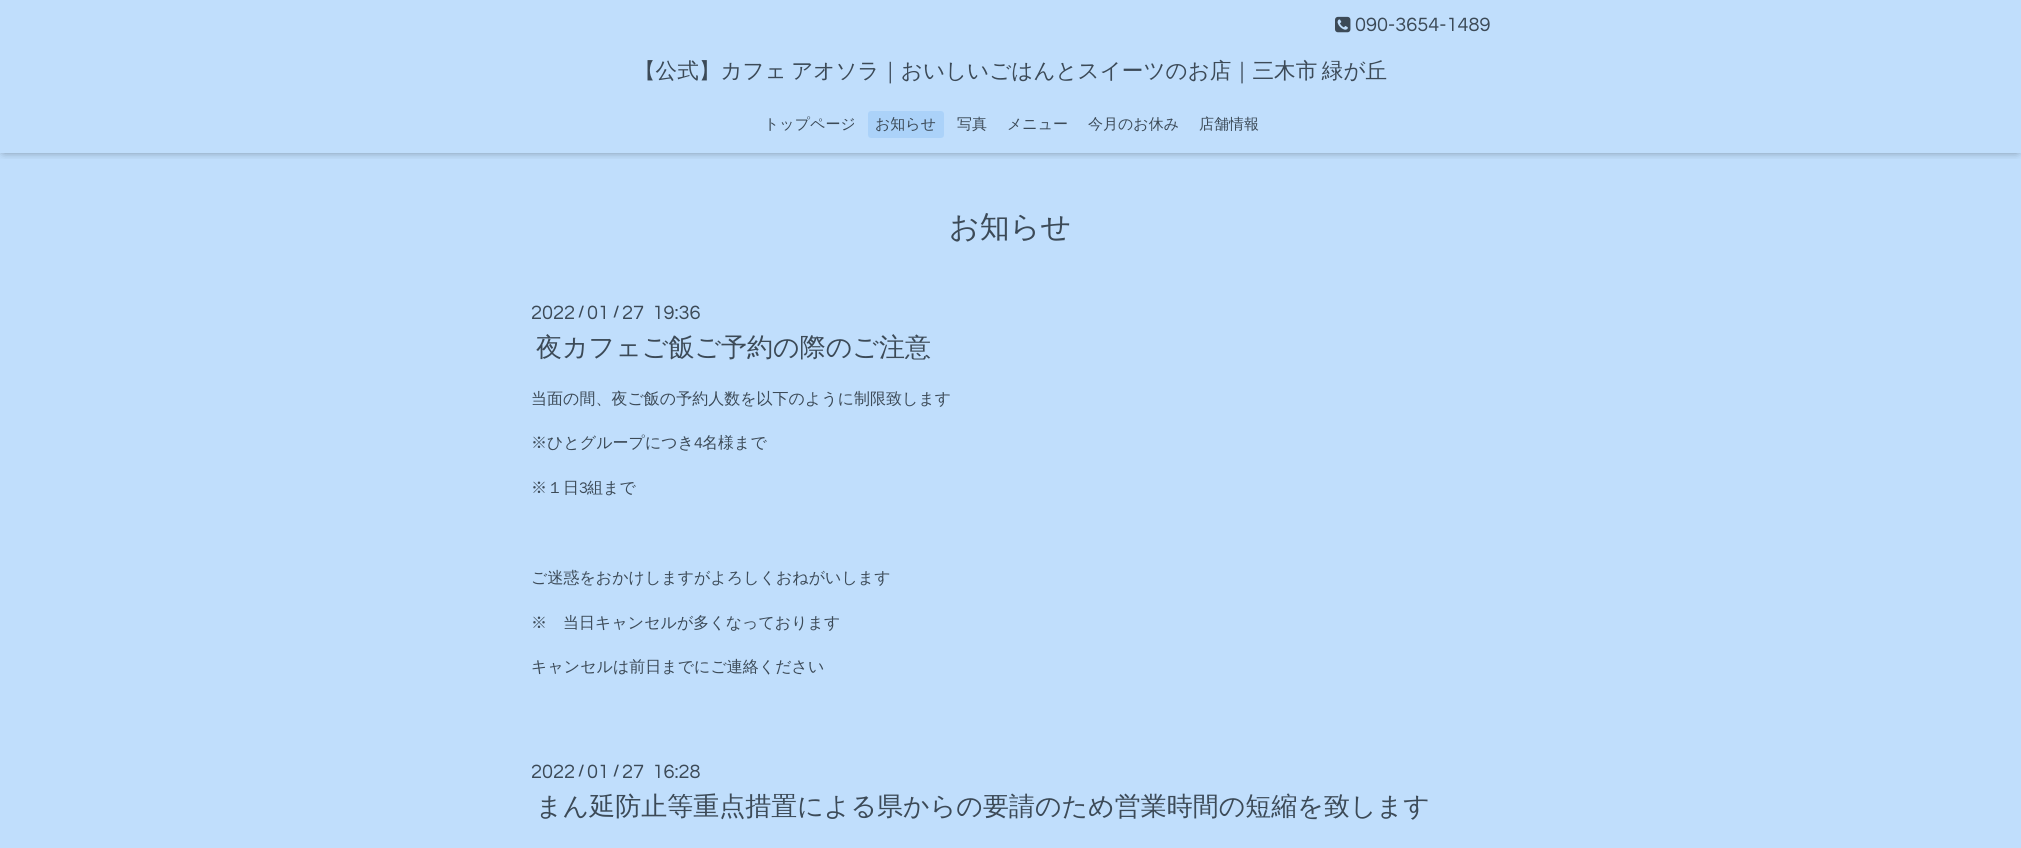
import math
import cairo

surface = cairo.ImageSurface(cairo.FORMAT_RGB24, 2021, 848)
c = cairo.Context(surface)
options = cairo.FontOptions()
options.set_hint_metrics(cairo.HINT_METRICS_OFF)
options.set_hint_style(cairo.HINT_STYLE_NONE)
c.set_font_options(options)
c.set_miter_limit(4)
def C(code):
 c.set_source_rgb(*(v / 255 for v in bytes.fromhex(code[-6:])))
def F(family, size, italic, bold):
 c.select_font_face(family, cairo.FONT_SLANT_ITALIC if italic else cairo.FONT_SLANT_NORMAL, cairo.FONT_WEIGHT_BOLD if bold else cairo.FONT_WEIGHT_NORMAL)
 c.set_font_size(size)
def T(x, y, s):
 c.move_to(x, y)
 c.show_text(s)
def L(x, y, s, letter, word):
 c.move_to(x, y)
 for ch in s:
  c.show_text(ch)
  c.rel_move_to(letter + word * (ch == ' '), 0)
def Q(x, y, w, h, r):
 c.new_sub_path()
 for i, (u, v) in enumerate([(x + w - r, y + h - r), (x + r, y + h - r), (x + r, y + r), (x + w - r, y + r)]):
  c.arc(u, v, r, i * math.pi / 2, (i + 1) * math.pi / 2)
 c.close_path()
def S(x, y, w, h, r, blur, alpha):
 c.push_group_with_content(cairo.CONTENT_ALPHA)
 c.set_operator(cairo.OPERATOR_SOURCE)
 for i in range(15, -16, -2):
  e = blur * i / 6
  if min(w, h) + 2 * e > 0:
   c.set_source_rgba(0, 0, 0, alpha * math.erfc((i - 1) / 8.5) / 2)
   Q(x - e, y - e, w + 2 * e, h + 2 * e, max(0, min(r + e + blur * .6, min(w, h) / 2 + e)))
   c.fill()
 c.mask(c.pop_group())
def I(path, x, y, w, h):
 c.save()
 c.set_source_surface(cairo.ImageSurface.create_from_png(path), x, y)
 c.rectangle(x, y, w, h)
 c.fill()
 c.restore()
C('c0defc')
c.paint()
c.save()
c.rectangle(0,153,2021,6)
c.clip()
C('000000')
S(4,5,2013,145,0,5,.6)
c.restore()
I('1.png',1335,16,16,17)
F('Questrial',20,0,0)
C('3c4a57')
T(1355,31,'090-3654-1489')
F('WenQuanYi Zen Hei Medium',21.6,0,0)
L(634,78,'【公式】カフェ アオソラ｜おいしいごはんとスイーツのお店｜三木市 緑が丘',0,-2)
F('WenQuanYi Zen Hei Medium',15,0,0)
T(764,129,'トップページ')
C('abd2f9')
Q(868,111,76,27,3)
c.fill()
C('3c4a57')
T(875,129,'お知らせ')
T(957,129,'写真')
T(1007,129,'メニュー')
T(1088,129,'今月のお休み')
T(1199,129,'店舗情報')
F('WenQuanYi Zen Hei Medium',30,0,0)
T(949,237,'お知らせ')
F('Questrial',20,0,0)
T(531,319,'2022')
F('Questrial',16,0,1)
T(578,317,'/')
F('Questrial',20,0,0)
T(587,319,'01')
F('Questrial',16,0,1)
T(613,317,'/')
F('Questrial',20,0,0)
T(622,319,'27  19:36')
F('WenQuanYi Zen Hei Medium',26,0,0)
T(536,356,'夜カフェご飯ご予約の際のご注意')
F('WenQuanYi Zen Hei Medium',16,0,0)
T(531,404,'当面の間、夜ご飯の予約人数を以下のように制限致します')
T(531,448,'※ひとグループにつき')
F('Questrial',16,0,0)
T(694,448,'4')
F('WenQuanYi Zen Hei Medium',16,0,0)
T(702,448,'名様まで')
T(531,493,'※１日')
F('Questrial',16,0,0)
T(579,493,'3')
F('WenQuanYi Zen Hei Medium',16,0,0)
T(587,493,'組まで')
T(531,583,'ご迷惑をおかけしますがよろしくおねがいします')
T(531,628,'※　当日キャンセルが多くなっております')
T(531,672,'キャンセルは前日までにご連絡ください')
F('Questrial',20,0,0)
T(531,778,'2022')
F('Questrial',16,0,1)
T(578,776,'/')
F('Questrial',20,0,0)
T(587,778,'01')
F('Questrial',16,0,1)
T(613,776,'/')
F('Questrial',20,0,0)
T(622,778,'27  16:28')
F('WenQuanYi Zen Hei Medium',26,0,0)
T(536,815,'まん延防止等重点措置による県からの要請のため営業時間の短縮を致します')
surface.write_to_png('o.png')
